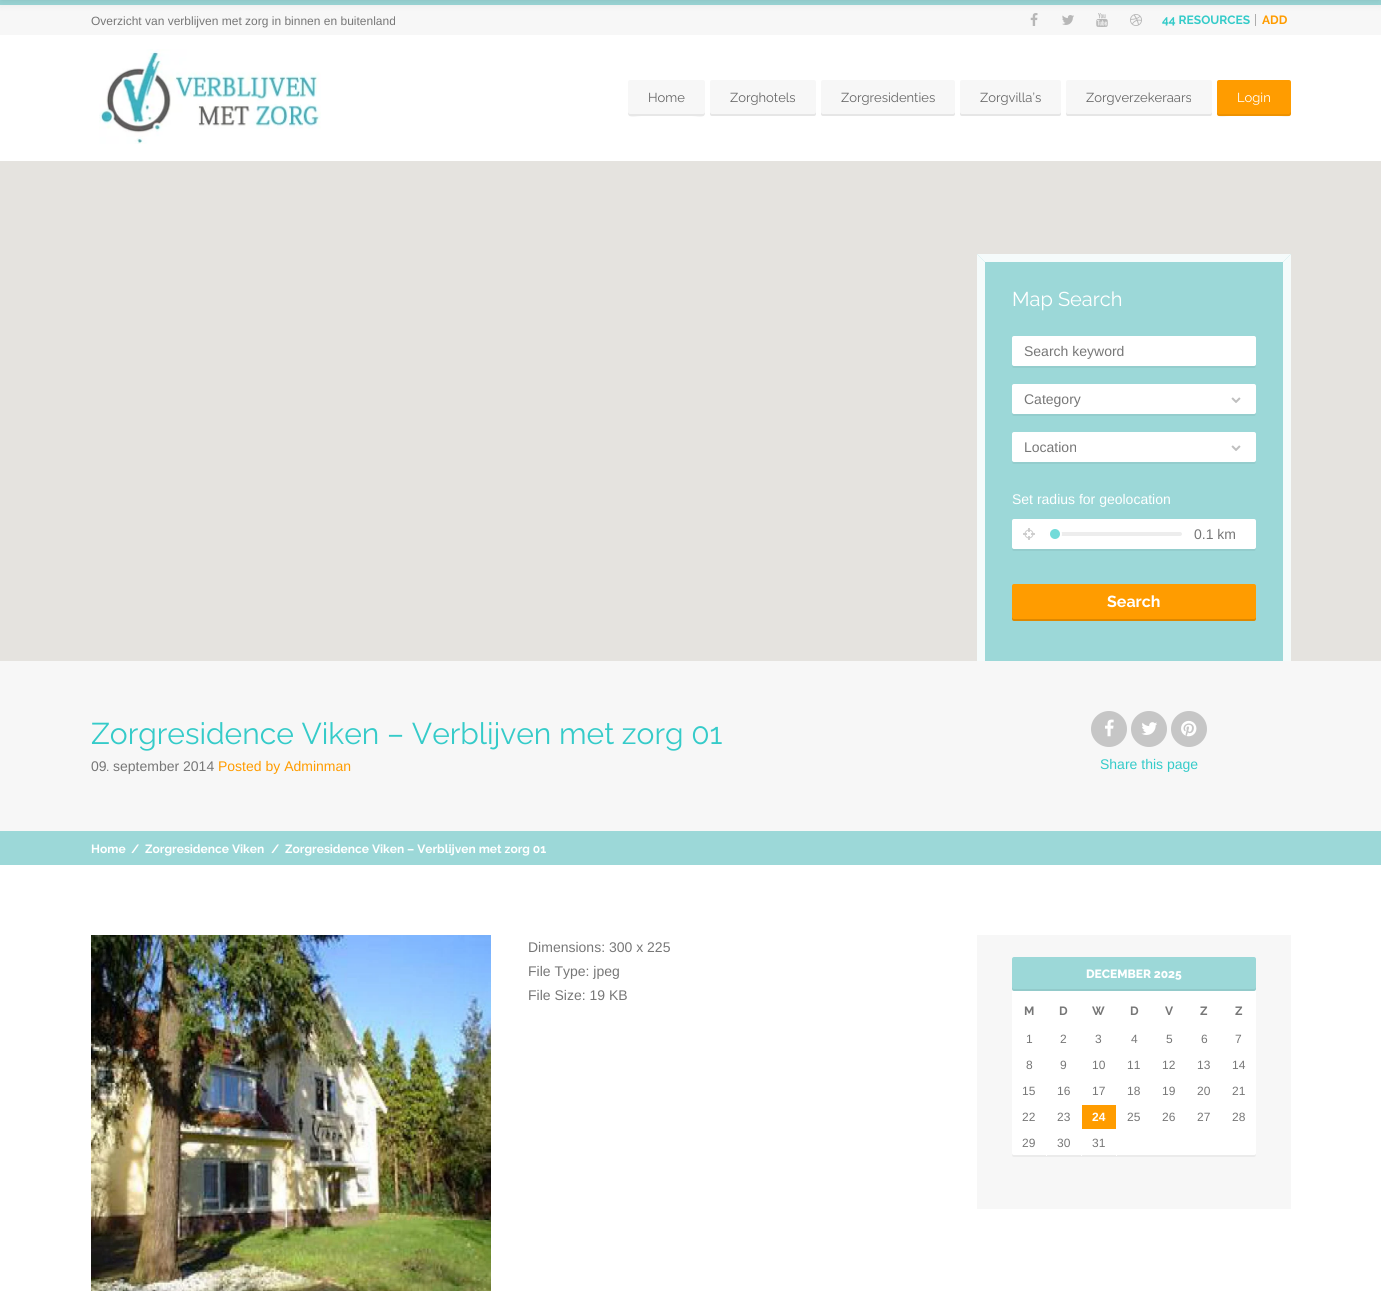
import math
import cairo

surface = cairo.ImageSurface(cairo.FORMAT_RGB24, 1381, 1291)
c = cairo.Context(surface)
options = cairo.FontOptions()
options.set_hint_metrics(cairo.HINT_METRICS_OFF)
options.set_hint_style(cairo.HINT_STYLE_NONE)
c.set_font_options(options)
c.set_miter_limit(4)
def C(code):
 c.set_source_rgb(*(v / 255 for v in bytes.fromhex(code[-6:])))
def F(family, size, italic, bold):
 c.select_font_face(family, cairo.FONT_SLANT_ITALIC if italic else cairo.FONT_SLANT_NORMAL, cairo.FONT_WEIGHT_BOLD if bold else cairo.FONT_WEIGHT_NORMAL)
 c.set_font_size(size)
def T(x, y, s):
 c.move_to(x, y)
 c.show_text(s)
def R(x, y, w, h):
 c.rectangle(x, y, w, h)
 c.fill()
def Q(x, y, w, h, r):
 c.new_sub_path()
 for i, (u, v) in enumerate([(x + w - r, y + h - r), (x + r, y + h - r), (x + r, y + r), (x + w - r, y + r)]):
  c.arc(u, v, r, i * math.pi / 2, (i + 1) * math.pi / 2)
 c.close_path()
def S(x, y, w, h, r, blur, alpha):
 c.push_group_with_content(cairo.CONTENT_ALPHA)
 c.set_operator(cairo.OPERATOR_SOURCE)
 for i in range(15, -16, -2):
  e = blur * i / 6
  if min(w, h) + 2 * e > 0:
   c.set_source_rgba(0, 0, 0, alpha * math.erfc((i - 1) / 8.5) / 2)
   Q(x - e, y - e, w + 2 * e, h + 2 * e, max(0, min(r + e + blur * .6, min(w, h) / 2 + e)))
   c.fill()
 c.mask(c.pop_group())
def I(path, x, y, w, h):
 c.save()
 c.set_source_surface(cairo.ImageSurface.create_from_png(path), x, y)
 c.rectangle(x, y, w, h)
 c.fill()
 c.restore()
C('ffffff')
c.paint()
C('f7f7f7')
R(0,5,1381,30)
C('9cd8d8')
R(0,0,1381,5)
I('1.png',1030,13,8,13)
I('2.png',1062,15,12,10)
I('3.png',1096,13,12,14)
I('4.png',1130,14,12,12)
C('adadad')
R(1255,14,1,12)
C('000000')
S(0,-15,1381,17,0,5,.1)
F('Liberation Sans',12,0,0)
C('777777')
T(91,25,'Overzicht van verblijven met zorg in binnen en buitenland')
F('Raleway',12,0,1)
C('35cbc9')
T(1162,24,'44 RESOURCES')
C('ff9c00')
T(1262,24,'ADD')
I('5.png',99,49,222,95)
C('f7f7f7')
Q(628,80,77,36,2)
c.fill()
c.set_source_rgba(0,0,0,0.07)
c.new_path()
c.move_to(628,112)
c.curve_to(628,119,634,116,642,116)
c.line_to(691,116)
c.curve_to(699,116,705,119,705,112)
c.curve_to(705,113,704,114,703,114)
c.line_to(630,114)
c.curve_to(629,114,628,113,628,112)
c.close_path()
c.fill()
F('Raleway',13,0,0)
C('666666')
T(648,102,'Home')
C('f7f7f7')
Q(710,80,106,36,2)
c.fill()
C('e6e6e6')
c.new_path()
c.move_to(710,112)
c.line_to(710,114)
c.curve_to(710,115,711,116,712,116)
c.line_to(814,116)
c.curve_to(815,116,816,115,816,114)
c.line_to(816,112)
c.curve_to(816,113,815,114,814,114)
c.line_to(712,114)
c.curve_to(711,114,710,113,710,112)
c.close_path()
c.fill()
C('666666')
T(730,102,'Zorghotels')
C('f7f7f7')
Q(821,80,134,36,2)
c.fill()
C('e6e6e6')
c.new_path()
c.move_to(821,112)
c.line_to(821,114)
c.curve_to(821,115,822,116,823,116)
c.line_to(953,116)
c.curve_to(954,116,955,115,955,114)
c.line_to(955,112)
c.curve_to(955,113,954,114,953,114)
c.line_to(823,114)
c.curve_to(822,114,821,113,821,112)
c.close_path()
c.fill()
C('666666')
T(841,102,'Zorgresidenties')
C('f7f7f7')
Q(960,80,101,36,2)
c.fill()
C('e6e6e6')
c.new_path()
c.move_to(960,112)
c.line_to(960,114)
c.curve_to(960,115,961,116,962,116)
c.line_to(1059,116)
c.curve_to(1060,116,1061,115,1061,114)
c.line_to(1061,112)
c.curve_to(1061,113,1060,114,1059,114)
c.line_to(962,114)
c.curve_to(961,114,960,113,960,112)
c.close_path()
c.fill()
C('666666')
T(980,102,'Zorgvilla’s')
C('f7f7f7')
Q(1066,80,146,36,2)
c.fill()
C('e6e6e6')
c.new_path()
c.move_to(1066,112)
c.curve_to(1066,113,1066,115,1067,116)
c.line_to(1210,116)
c.curve_to(1212,116,1212,114,1212,112)
c.curve_to(1212,113,1211,114,1210,114)
c.line_to(1068,114)
c.curve_to(1067,114,1066,113,1066,112)
c.close_path()
c.fill()
C('666666')
T(1086,102,'Zorgverzekeraars')
C('ff9c00')
Q(1217,80,74,36,2)
c.fill()
c.set_source_rgba(0,0,0,0.07)
c.new_path()
c.move_to(1217,112)
c.curve_to(1217,119,1223,116,1231,116)
c.line_to(1277,116)
c.curve_to(1285,116,1291,119,1291,112)
c.line_to(1290,113)
c.line_to(1289,114)
c.line_to(1219,114)
c.curve_to(1218,114,1217,113,1217,112)
c.close_path()
c.fill()
C('ffffff')
T(1237,102,'Login')
C('e5e3df')
R(0,161,1381,500)
C('9cd8d8')
R(977,254,314,407)
C('f5fbfb')
c.new_path()
c.move_to(977,254)
c.line_to(1291,254)
c.line_to(1283,262)
c.line_to(985,262)
c.close_path()
c.fill()
c.set_source_rgba(1,1,1,0.9)
c.new_path()
c.move_to(1291,254)
c.line_to(1291,661)
c.line_to(1283,661)
c.line_to(1283,262)
c.close_path()
c.fill()
c.new_path()
c.move_to(977,661)
c.line_to(977,254)
c.line_to(985,262)
c.line_to(985,661)
c.close_path()
c.fill()
F('Raleway',20,0,0)
C('ffffff')
T(1012,306,'Map Search')
C('94cdcd')
c.new_path()
c.move_to(1012,364)
c.curve_to(1012,366,1012,368,1014,368)
c.line_to(1254,368)
c.curve_to(1256,368,1256,365,1256,364)
c.curve_to(1256,365,1255,366,1254,366)
c.line_to(1014,366)
c.curve_to(1013,366,1012,365,1012,364)
c.close_path()
c.fill()
C('ffffff')
Q(1012,336,244,30,2)
c.fill()
F('Liberation Sans',14,0,0)
C('777777')
T(1024,356,'Search keyword')
C('94cdcd')
c.new_path()
c.move_to(1012,412)
c.curve_to(1012,414,1012,416,1014,416)
c.line_to(1254,416)
c.curve_to(1256,416,1256,413,1256,412)
c.curve_to(1256,413,1255,414,1254,414)
c.line_to(1014,414)
c.curve_to(1013,414,1012,413,1012,412)
c.close_path()
c.fill()
C('ffffff')
Q(1012,384,244,30,2)
c.fill()
C('777777')
T(1024,404,'Category')
I('6.png',1231,397,10,6)
C('94cdcd')
c.new_path()
c.move_to(1012,460)
c.curve_to(1012,462,1012,464,1014,464)
c.line_to(1254,464)
c.curve_to(1256,464,1256,461,1256,460)
c.curve_to(1256,461,1255,462,1254,462)
c.line_to(1014,462)
c.curve_to(1013,462,1012,461,1012,460)
c.close_path()
c.fill()
C('ffffff')
Q(1012,432,244,30,2)
c.fill()
C('777777')
T(1024,452,'Location')
I('6.png',1231,445,10,6)
C('ffffff')
T(1012,504,'Set radius for geolocation')
C('94cdcd')
c.new_path()
c.move_to(1012,547)
c.curve_to(1012,549,1012,551,1014,551)
c.line_to(1254,551)
c.curve_to(1256,551,1256,548,1256,547)
c.curve_to(1256,548,1255,549,1254,549)
c.line_to(1014,549)
c.curve_to(1013,549,1012,548,1012,547)
c.close_path()
c.fill()
C('ffffff')
Q(1012,519,244,30,2)
c.fill()
I('7.png',1023,528,12,12)
C('ededed')
Q(1048,532,134,4,2)
c.fill()
C('72dbd9')
c.arc(1055,534,6,0,2 * math.pi)
c.fill_preserve()
C('ffffff')
c.stroke()
C('777777')
T(1194,539,'0.1 km')
C('ff9c00')
Q(1012,584,244,37,2)
c.fill()
c.set_source_rgba(0,0,0,0.07)
c.new_path()
c.move_to(1012,617)
c.curve_to(1012,619,1012,621,1014,621)
c.line_to(1254,621)
c.curve_to(1256,621,1256,618,1256,617)
c.curve_to(1256,618,1255,619,1254,619)
c.line_to(1014,619)
c.curve_to(1013,619,1012,618,1012,617)
c.close_path()
c.fill()
F('Raleway',16,0,1)
C('ffffff')
T(1107,607,'Search')
c.set_source_rgba(0,0,0,0.07)
c.new_path()
c.move_to(1012,617)
c.curve_to(1012,619,1012,621,1014,621)
c.line_to(1254,621)
c.curve_to(1256,621,1256,618,1256,617)
c.curve_to(1256,618,1255,619,1254,619)
c.line_to(1014,619)
c.curve_to(1013,619,1012,618,1012,617)
c.close_path()
c.fill()
C('f7f7f7')
R(0,661,1381,170)
C('9cd8d8')
R(0,831,1381,34)
F('Raleway',30,0,0)
C('35cbc9')
T(91,744,'Zorgresidence Viken – Verblijven met zorg 01')
F('Liberation Sans',14,0,0)
C('777777')
T(91,771,'09')
F('Liberation Sans',12,0,0)
T(106,771,'.')
F('Liberation Sans',14,0,0)
T(113,771,'september 2014')
C('ff9c00')
T(218,771,'Posted by Adminman')
C('c6c6c6')
c.new_path()
c.arc(1109,729,18,0,2 * math.pi)
c.fill()
I('8.png',1105,719,9,18)
c.arc(1149,729,18,0,2 * math.pi)
c.fill()
I('9.png',1141,722,16,13)
c.arc(1189,729,18,0,2 * math.pi)
c.fill()
I('10.png',1181,720,16,17)
C('35cbc9')
T(1100,769,'Share this page')
F('Raleway',12,0,1)
C('ffffff')
T(91,853,'Home')
T(131,853,'/')
T(145,853,'Zorgresidence Viken')
T(271,853,'/')
T(285,853,'Zorgresidence Viken – Verblijven met zorg 01')
I('11.png',91,935,400,356)
F('Liberation Sans',14,0,0)
C('777777')
T(528,952,'Dimensions: 300 x 225')
T(528,976,'File Type: jpeg')
T(528,1000,'File Size: 19 KB')
C('f7f7f7')
R(977,935,314,274)
C('ebebeb')
c.new_path()
c.move_to(1012,1153)
c.curve_to(1012,1155,1012,1157,1014,1157)
c.line_to(1254,1157)
c.curve_to(1256,1157,1256,1154,1256,1153)
c.curve_to(1256,1154,1255,1155,1254,1155)
c.line_to(1014,1155)
c.curve_to(1013,1155,1012,1154,1012,1153)
c.close_path()
c.fill()
C('ffffff')
Q(1012,957,244,198,2)
c.fill()
C('9cd8d8')
Q(1012,957,244,34,2)
c.fill()
c.set_source_rgba(0,0,0,0.07)
c.new_path()
c.move_to(1012,987)
c.curve_to(1012,989,1012,991,1014,991)
c.line_to(1254,991)
c.curve_to(1256,991,1256,988,1256,987)
c.curve_to(1256,988,1255,989,1254,989)
c.line_to(1014,989)
c.curve_to(1013,989,1012,988,1012,987)
c.close_path()
c.fill()
F('Raleway ExtraBold',12,0,0)
C('ffffff')
T(1086,978,'DECEMBER 2025')
F('Raleway',12,0,1)
C('777777')
T(1024,1015,'M')
T(1059,1015,'D')
T(1092,1015,'W')
T(1130,1015,'D')
T(1165,1015,'V')
T(1200,1015,'Z')
T(1235,1015,'Z')
F('Liberation Sans',12,0,0)
T(1026,1043,'1')
T(1060,1043,'2')
T(1095,1043,'3')
T(1131,1043,'4')
T(1166,1043,'5')
T(1201,1043,'6')
T(1235,1043,'7')
T(1026,1069,'8')
T(1060,1069,'9')
T(1092,1069,'10')
T(1127,1069,'11')
T(1162,1069,'12')
T(1197,1069,'13')
T(1232,1069,'14')
T(1022,1095,'15')
T(1057,1095,'16')
T(1092,1095,'17')
T(1127,1095,'18')
T(1162,1095,'19')
T(1197,1095,'20')
T(1232,1095,'21')
T(1022,1121,'22')
T(1057,1121,'23')
C('ff9c00')
R(1082,1105,34,24)
F('Liberation Sans',12,0,1)
C('ffffff')
T(1092,1121,'24')
F('Liberation Sans',12,0,0)
C('777777')
T(1127,1121,'25')
T(1162,1121,'26')
T(1197,1121,'27')
T(1232,1121,'28')
T(1022,1147,'29')
C('ffffff')
R(1046,1155,1,1)
C('777777')
T(1057,1147,'30')
C('ffffff')
R(1081,1155,1,1)
C('777777')
T(1092,1147,'31')
C('ffffff')
R(1116,1155,1,1)
surface.write_to_png('o.png')
